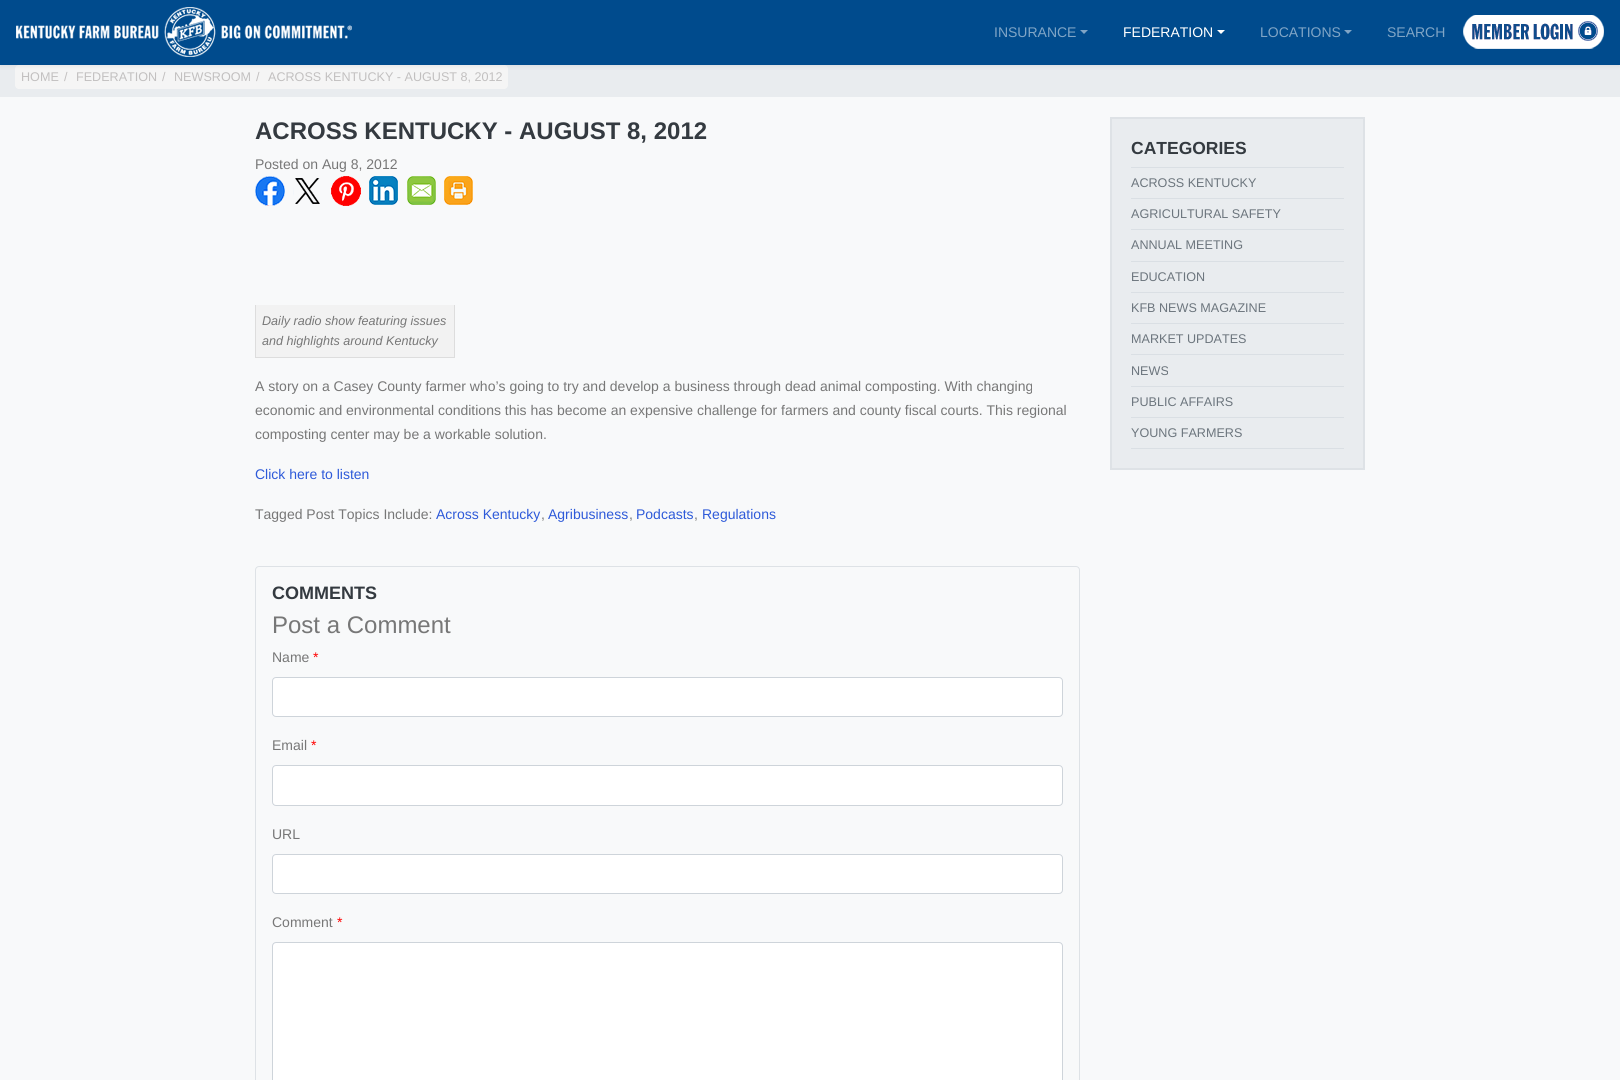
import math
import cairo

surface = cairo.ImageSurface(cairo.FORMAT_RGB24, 1620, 1080)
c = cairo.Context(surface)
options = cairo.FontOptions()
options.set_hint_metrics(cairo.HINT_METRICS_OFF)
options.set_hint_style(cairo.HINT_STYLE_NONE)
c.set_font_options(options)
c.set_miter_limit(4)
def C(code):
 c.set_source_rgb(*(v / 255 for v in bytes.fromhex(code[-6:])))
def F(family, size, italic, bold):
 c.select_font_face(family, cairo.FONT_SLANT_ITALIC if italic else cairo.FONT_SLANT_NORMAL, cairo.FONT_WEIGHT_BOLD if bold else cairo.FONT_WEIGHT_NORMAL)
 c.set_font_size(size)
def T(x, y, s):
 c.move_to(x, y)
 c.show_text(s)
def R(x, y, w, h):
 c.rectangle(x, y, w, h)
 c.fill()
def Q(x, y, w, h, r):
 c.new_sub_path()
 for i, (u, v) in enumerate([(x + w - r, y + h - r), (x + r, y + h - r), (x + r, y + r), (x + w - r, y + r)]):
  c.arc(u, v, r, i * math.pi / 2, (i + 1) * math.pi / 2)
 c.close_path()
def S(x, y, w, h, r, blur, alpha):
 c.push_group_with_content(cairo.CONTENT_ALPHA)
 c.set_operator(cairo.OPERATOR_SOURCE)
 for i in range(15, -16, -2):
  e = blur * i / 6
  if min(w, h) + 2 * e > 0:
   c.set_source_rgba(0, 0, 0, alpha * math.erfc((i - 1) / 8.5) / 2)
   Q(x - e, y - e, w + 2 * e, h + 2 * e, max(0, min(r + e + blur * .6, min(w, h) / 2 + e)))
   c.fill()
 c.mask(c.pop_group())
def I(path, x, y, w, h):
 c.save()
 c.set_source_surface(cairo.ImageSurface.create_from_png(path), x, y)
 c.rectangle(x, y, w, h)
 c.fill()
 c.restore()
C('f8f9fa')
c.paint()
C('e9ecef')
R(0,65,1620,32)
C('f5f5f5')
Q(15,65,493,24,4)
c.fill()
C('343a40')
S(0,2,1620,65,0,2,.07)
C('004b8d')
R(0,0,1620,65)
I('1.png',16,7,336,50)
F('Liberation Sans',14,0,0)
C('80a5c6')
T(994,37,'INSURANCE')
c.new_path()
c.move_to(1080,30)
c.line_to(1088,30)
c.line_to(1084,34)
c.close_path()
c.fill()
C('ffffff')
T(1123,37,'FEDERATION')
c.new_path()
c.move_to(1217,30)
c.line_to(1225,30)
c.line_to(1221,34)
c.close_path()
c.fill()
C('80a5c6')
T(1260,37,'LOCATIONS')
c.new_path()
c.move_to(1344,30)
c.line_to(1352,30)
c.line_to(1348,34)
c.close_path()
c.fill()
T(1387,37,'SEARCH')
I('2.png',1463,15,141,34)
F('Liberation Sans',12.6,0,0)
C('c2c0c0')
T(21,81,'HOME')
T(64,81,'/')
T(76,81,'FEDERATION')
T(162,81,'/')
T(174,81,'NEWSROOM')
T(256,81,'/')
T(268,81,'ACROSS KENTUCKY - AUGUST 8, 2012')
F('Liberation Sans',24,0,1)
C('343a40')
T(255,139,'ACROSS KENTUCKY - AUGUST 8, 2012')
F('Liberation Sans',14,0,0)
C('777777')
T(255,169,'Posted on Aug 8, 2012')
I('3.png',255,176,30,30)
I('4.png',293,178,27,26)
I('5.png',331,176,30,30)
I('6.png',369,176,29,29)
I('7.png',407,176,29,29)
I('8.png',444,176,29,29)
C('f2f2f2')
R(256,305,198,52)
C('dddddd')
R(454,305,1,53)
R(255,357,200,1)
R(255,305,1,53)
F('Liberation Sans',12.6,1,0)
C('777777')
T(262,325,'Daily radio show featuring issues')
T(262,345,'and highlights around Kentucky')
F('Liberation Sans',14,0,0)
T(255,391,'A story on a Casey County farmer who’s going to try and develop a business through dead animal composting. With changing')
T(255,415,'economic and environmental conditions this has become an expensive challenge for farmers and county fiscal courts. This regional')
T(255,439,'composting center may be a workable solution.')
C('2e5ad9')
T(255,479,'Click here to listen')
C('777777')
T(255,519,'Tagged Post Topics Include:')
C('2e5ad9')
T(436,519,'Across Kentucky')
C('777777')
T(541,519,',')
C('2e5ad9')
T(548,519,'Agribusiness')
C('777777')
T(629,519,',')
C('2e5ad9')
T(636,519,'Podcasts')
C('777777')
T(694,519,',')
C('2e5ad9')
T(702,519,'Regulations')
Q(255.5,566.5,824,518,3.5)
C('dee2e6')
c.set_line_width(1)
c.stroke()
F('Liberation Sans',18,0,1)
C('343a40')
T(272,599,'COMMENTS')
F('Liberation Sans',24,0,0)
C('777777')
T(272,633,'Post a Comment')
F('Liberation Sans',14,0,0)
T(272,662,'Name')
C('ff0000')
T(313,662,'*')
C('ffffff')
Q(272.5,677.5,790,39,3.5)
c.fill_preserve()
C('ced4da')
c.stroke()
C('777777')
T(272,750,'Email')
C('ff0000')
T(311,750,'*')
C('ffffff')
Q(272.5,765.5,790,40,3.5)
c.fill_preserve()
C('ced4da')
c.stroke()
C('777777')
T(272,839,'URL')
C('ffffff')
Q(272.5,854.5,790,39,3.5)
c.fill_preserve()
C('ced4da')
c.stroke()
C('777777')
T(272,927,'Comment')
C('ff0000')
T(337,927,'*')
C('ffffff')
Q(273,943,789,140,3)
c.fill()
Q(272.5,942.5,790,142,3.5)
C('ced4da')
c.stroke()
C('e9ecef')
c.rectangle(1111,118,253,351)
c.fill_preserve()
C('dee2e6')
c.set_line_width(2)
c.stroke()
F('Liberation Sans',17.5,0,1)
C('343a40')
T(1131,154,'CATEGORIES')
C('dadfe4')
R(1131,167,213,1)
R(1131,448,213,1)
F('Liberation Sans',12.6,0,0)
C('6c757d')
T(1131,187,'ACROSS KENTUCKY')
C('dadfe4')
R(1131,198,213,1)
C('6c757d')
T(1131,218,'AGRICULTURAL SAFETY')
C('dadfe4')
R(1131,229,213,1)
C('6c757d')
T(1131,249,'ANNUAL MEETING')
C('dadfe4')
R(1131,261,213,1)
C('6c757d')
T(1131,281,'EDUCATION')
C('dadfe4')
R(1131,292,213,1)
C('6c757d')
T(1131,312,'KFB NEWS MAGAZINE')
C('dadfe4')
R(1131,323,213,1)
C('6c757d')
T(1131,343,'MARKET UPDATES')
C('dadfe4')
R(1131,354,213,1)
C('6c757d')
T(1131,375,'NEWS')
C('dadfe4')
R(1131,386,213,1)
C('6c757d')
T(1131,406,'PUBLIC AFFAIRS')
C('dadfe4')
R(1131,417,213,1)
C('6c757d')
T(1131,437,'YOUNG FARMERS')
surface.write_to_png('o.png')
